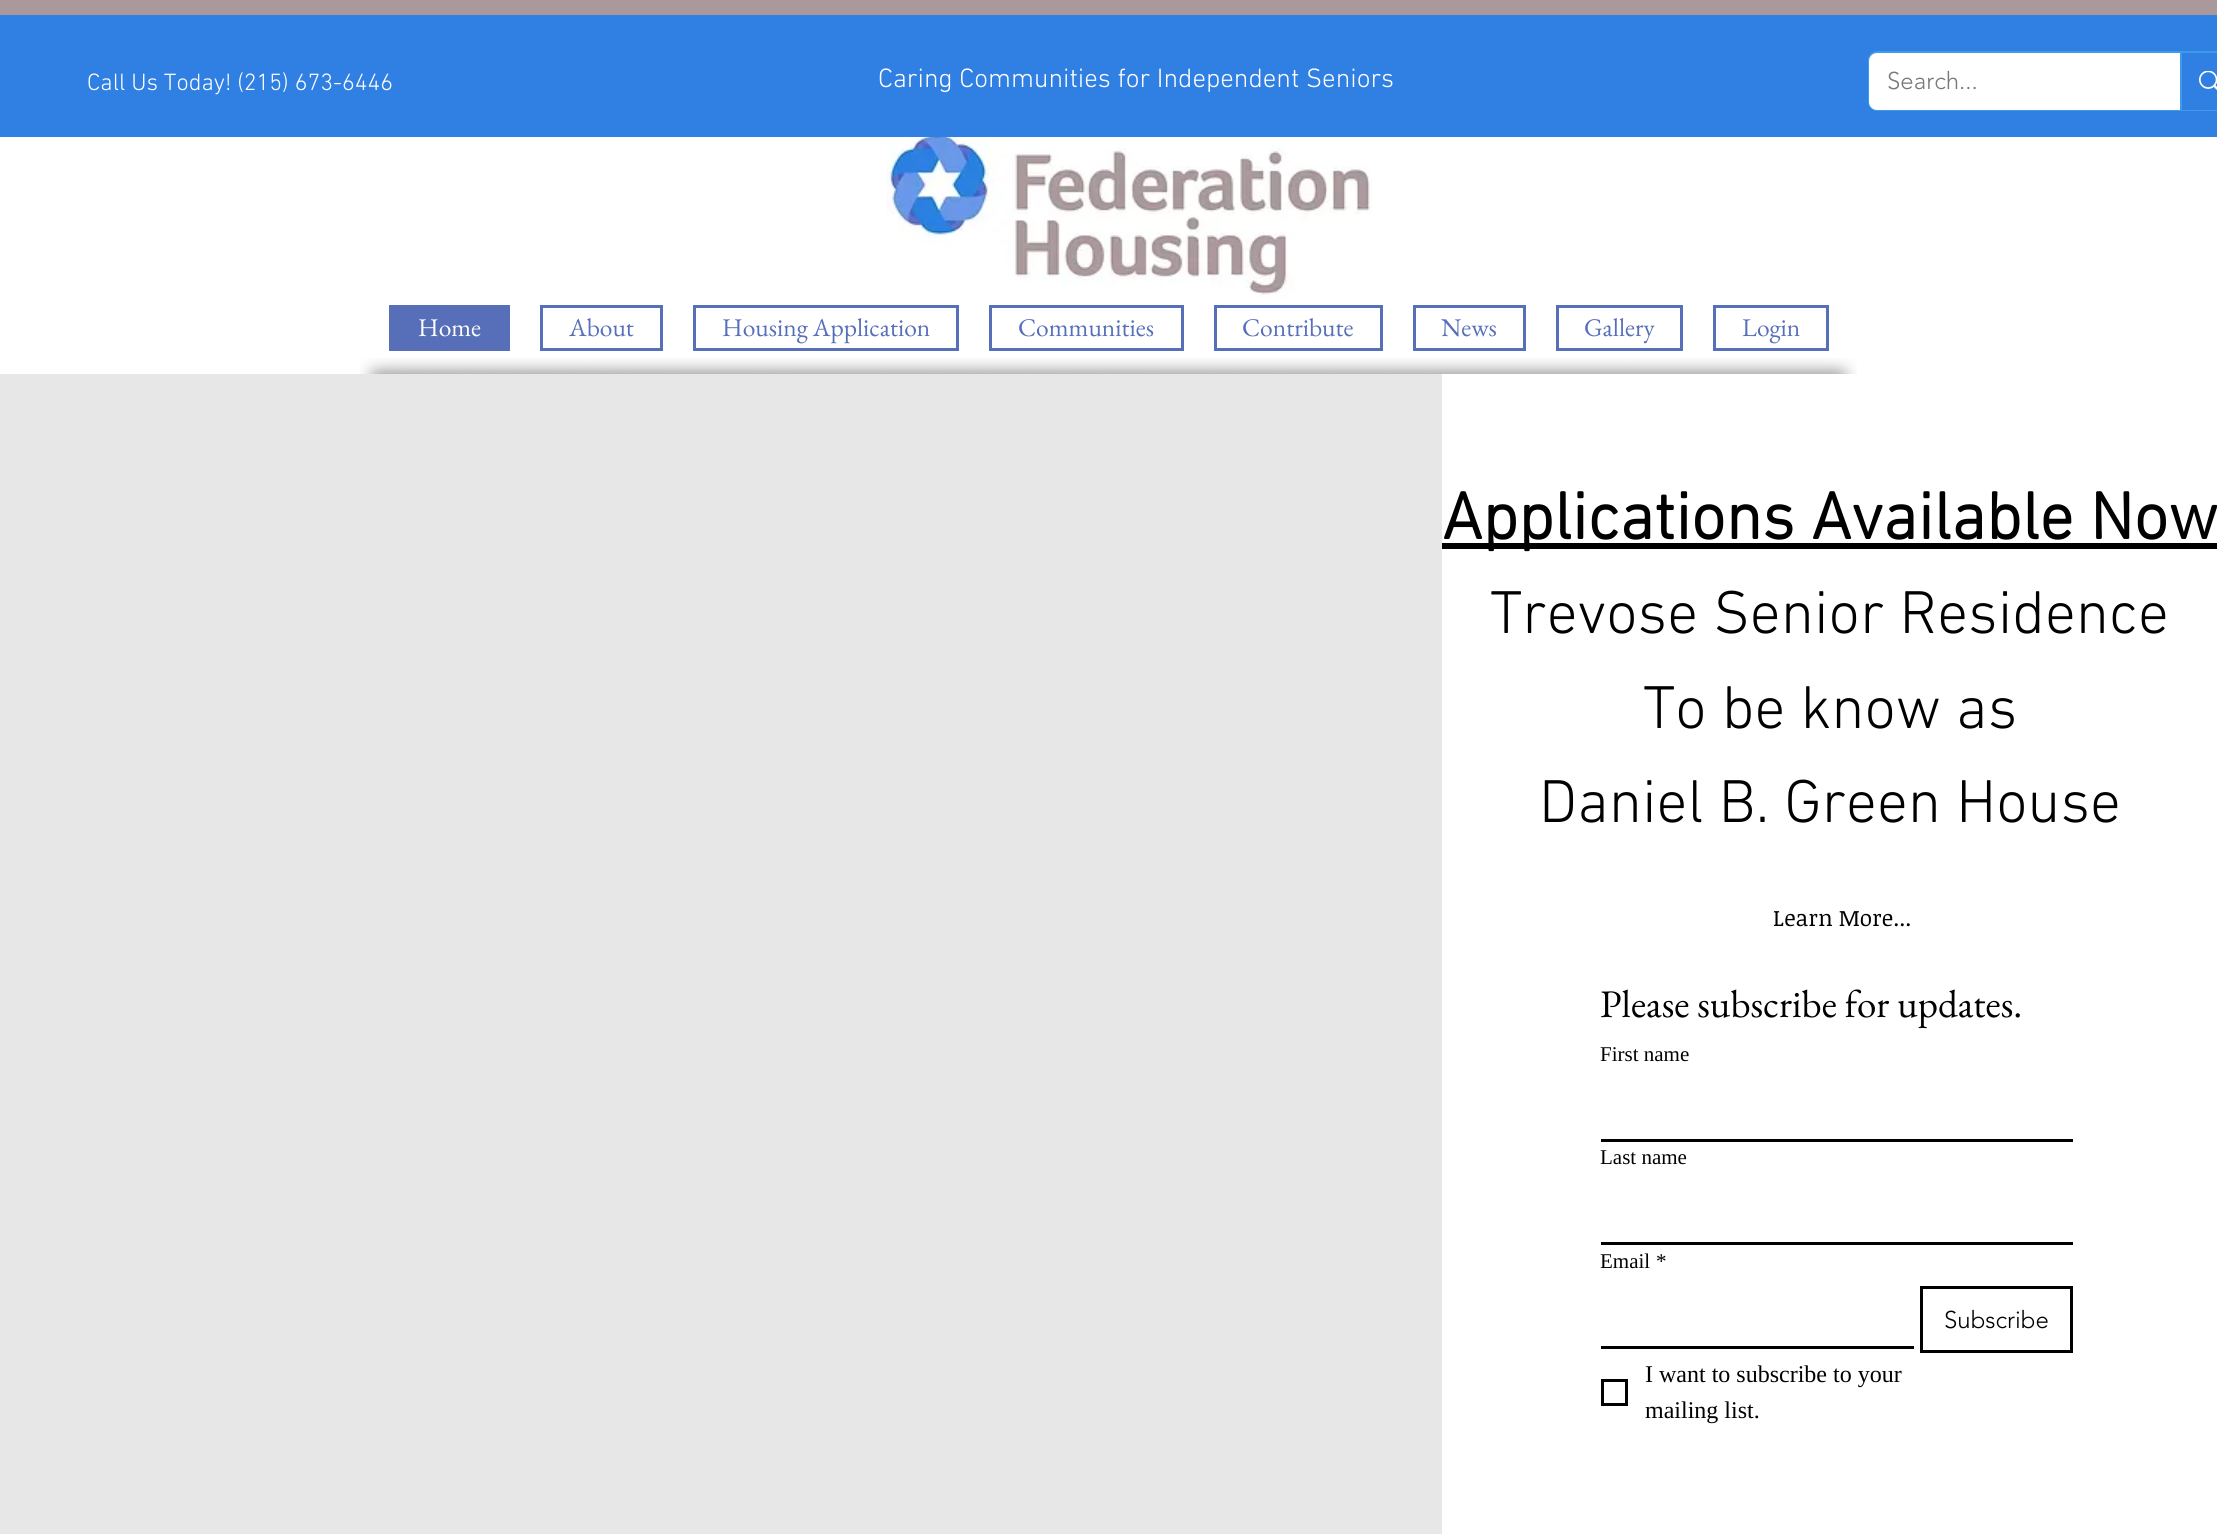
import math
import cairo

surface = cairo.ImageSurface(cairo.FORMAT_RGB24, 2217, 1534)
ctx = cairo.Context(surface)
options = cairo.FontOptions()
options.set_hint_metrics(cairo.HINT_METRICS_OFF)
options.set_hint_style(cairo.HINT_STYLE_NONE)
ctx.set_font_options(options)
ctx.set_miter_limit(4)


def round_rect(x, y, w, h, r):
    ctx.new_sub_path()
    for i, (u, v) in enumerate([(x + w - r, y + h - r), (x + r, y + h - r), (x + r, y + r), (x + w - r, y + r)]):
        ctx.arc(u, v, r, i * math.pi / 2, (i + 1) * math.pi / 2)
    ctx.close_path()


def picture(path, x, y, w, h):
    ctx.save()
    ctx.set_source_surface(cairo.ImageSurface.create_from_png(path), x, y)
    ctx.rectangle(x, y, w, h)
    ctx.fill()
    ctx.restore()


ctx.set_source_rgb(1, 1, 1)
ctx.paint()
ctx.set_source_rgb(0.188, 0.498, 0.886)
ctx.rectangle(0, 15, 2217, 122)
ctx.fill()
ctx.select_font_face("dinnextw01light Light")
ctx.set_font_size(24)
ctx.set_source_rgb(1, 1, 1)
ctx.move_to(87, 90)
ctx.show_text("Call Us Today! (215) 673-6446")
ctx.set_font_size(27)
ctx.move_to(878, 87)
ctx.show_text("Caring Communities for Independent Seniors")
round_rect(1869, 52, 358, 58, 8)
ctx.set_source_rgb(0.239, 0.608, 0.914)
ctx.stroke()
ctx.set_source_rgb(1, 1, 1)
round_rect(1869, 53, 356, 57, 8)
ctx.fill()
ctx.select_font_face("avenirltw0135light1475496 Light")
ctx.set_font_size(24)
ctx.set_source_rgb(0.471, 0.471, 0.471)
ctx.move_to(1887, 89)
ctx.show_text("Search...")
ctx.set_source_rgb(0.188, 0.498, 0.886)
ctx.rectangle(2182, 53, 35, 57)
ctx.fill()
ctx.set_source_rgb(0.239, 0.608, 0.914)
ctx.rectangle(2180, 53, 2, 57)
ctx.fill()
picture("img1.png", 2199, 71, 18, 19)
ctx.set_source_rgb(0.671, 0.596, 0.616)
ctx.rectangle(0, 0, 2217, 15)
ctx.fill()
picture("img2.png", 886, 137, 486, 161)
ctx.set_source_rgb(0.337, 0.435, 0.722)
ctx.rectangle(389, 305, 121, 46)
ctx.fill()
ctx.select_font_face("EB Garamond")
ctx.set_font_size(25.5)
ctx.set_source_rgb(1, 1, 1)
ctx.move_to(418, 336)
ctx.show_text("Home")
ctx.rectangle(541.5, 306.5, 120, 43)
ctx.set_source_rgb(0.337, 0.435, 0.722)
ctx.set_line_width(3)
ctx.stroke()
ctx.move_to(569, 336)
ctx.show_text("About")
ctx.rectangle(694.5, 306.5, 263, 43)
ctx.stroke()
ctx.move_to(722, 336)
ctx.show_text("Housing Application")
ctx.rectangle(990.5, 306.5, 192, 43)
ctx.stroke()
ctx.move_to(1018, 336)
ctx.show_text("Communities")
ctx.rectangle(1215.5, 306.5, 166, 43)
ctx.stroke()
ctx.move_to(1242, 336)
ctx.show_text("Contribute")
ctx.rectangle(1414.5, 306.5, 110, 43)
ctx.stroke()
ctx.move_to(1441, 336)
ctx.show_text("News")
ctx.rectangle(1557.5, 306.5, 124, 43)
ctx.stroke()
ctx.move_to(1584, 336)
ctx.show_text("Gallery")
ctx.rectangle(1714.5, 306.5, 113, 43)
ctx.stroke()
ctx.move_to(1742, 336)
ctx.show_text("Login")
picture("img3.png", 360, 358, 66, 16)
picture("img4.png", 426, 358, 1365, 16)
picture("img5.png", 1791, 358, 66, 16)
ctx.set_source_rgb(0.91, 0.906, 0.906)
ctx.rectangle(0, 374, 1442, 1160)
ctx.fill()
ctx.set_source_rgb(0, 0, 0)
ctx.rectangle(1442, 543, 775, 6)
ctx.fill()
ctx.select_font_face("dinnextw01light", cairo.FONT_SLANT_NORMAL, cairo.FONT_WEIGHT_BOLD)
ctx.set_font_size(67.5)
ctx.move_to(1442, 539)
ctx.show_text("Applications Available Now")
ctx.select_font_face("dinnextw01light Light")
ctx.set_font_size(61.5)
ctx.move_to(1490, 633)
ctx.show_text("Trevose Senior Residence")
ctx.move_to(1643, 728)
ctx.show_text("To be know as")
ctx.move_to(1539, 822)
ctx.show_text("Daniel B. Green House")
ctx.select_font_face("Noticia Text")
ctx.set_font_size(22.5)
ctx.move_to(1773, 926)
ctx.show_text("Learn More...")
ctx.select_font_face("EB Garamond")
ctx.set_font_size(39)
ctx.move_to(1600, 1017)
ctx.show_text("Please subscribe for updates.")
ctx.select_font_face("Liberation Serif")
ctx.set_font_size(21)
ctx.move_to(1600, 1061)
ctx.show_text("First name")
ctx.rectangle(1601, 1139, 472, 3)
ctx.fill()
ctx.move_to(1600, 1164)
ctx.show_text("Last name")
ctx.rectangle(1601, 1242, 472, 3)
ctx.fill()
ctx.move_to(1600, 1268)
ctx.show_text("Email")
ctx.move_to(1656, 1268)
ctx.show_text("*")
ctx.rectangle(1921.5, 1287.5, 150, 64)
ctx.stroke()
ctx.select_font_face("avenirltw0135light1475496 Light")
ctx.set_font_size(24)
ctx.move_to(1944, 1328)
ctx.show_text("Subscribe")
ctx.rectangle(1601, 1346, 313, 3)
ctx.fill()
ctx.rectangle(1602.5, 1380.5, 24, 24)
ctx.stroke()
ctx.select_font_face("Liberation Serif")
ctx.move_to(1645, 1382)
ctx.show_text("I want to subscribe to your")
ctx.move_to(1645, 1418)
ctx.show_text("mailing list.")
surface.write_to_png("page.png")
